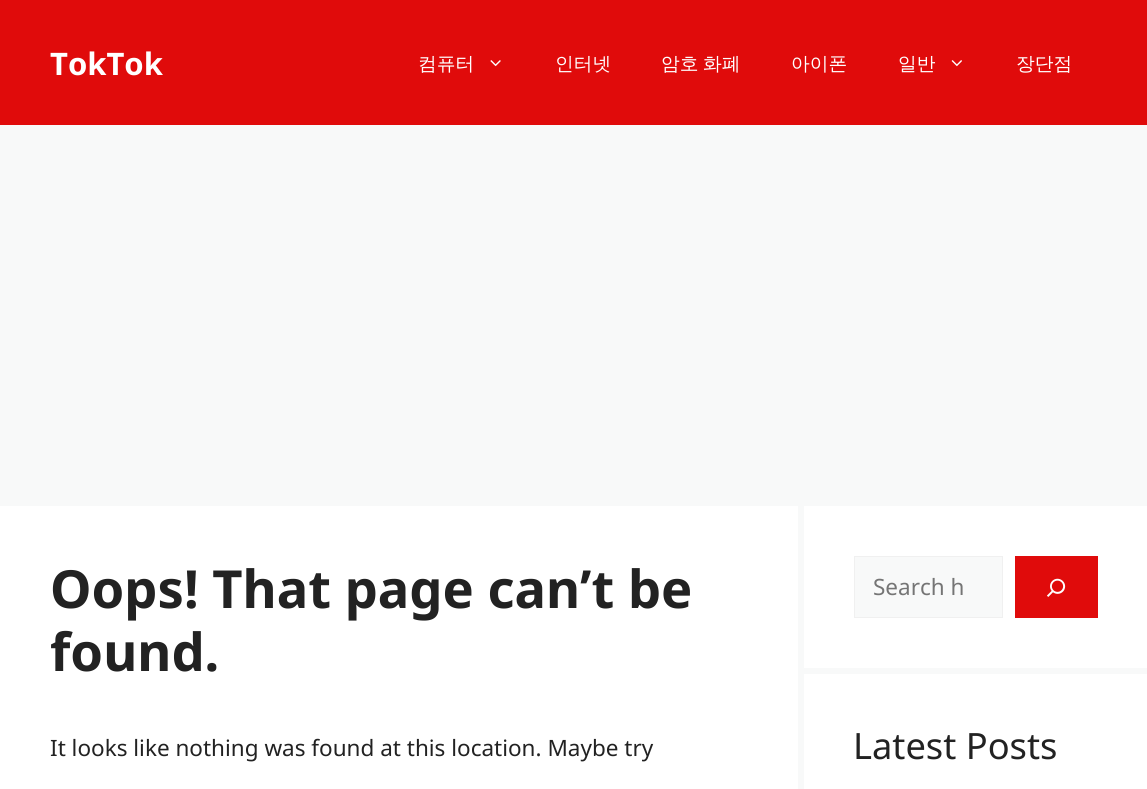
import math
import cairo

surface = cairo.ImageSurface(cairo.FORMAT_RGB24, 1147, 789)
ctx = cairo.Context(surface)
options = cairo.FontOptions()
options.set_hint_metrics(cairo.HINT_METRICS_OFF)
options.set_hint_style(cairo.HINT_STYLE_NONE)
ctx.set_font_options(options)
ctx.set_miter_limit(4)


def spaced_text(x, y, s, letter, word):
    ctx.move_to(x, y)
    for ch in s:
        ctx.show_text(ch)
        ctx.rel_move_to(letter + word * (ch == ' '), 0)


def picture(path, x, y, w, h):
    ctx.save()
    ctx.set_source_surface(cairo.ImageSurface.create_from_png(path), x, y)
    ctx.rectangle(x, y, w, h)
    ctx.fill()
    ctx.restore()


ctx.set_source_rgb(0.969, 0.973, 0.976)
ctx.paint()
ctx.set_source_rgb(0.878, 0.043, 0.043)
ctx.rectangle(0, 0, 1147, 125)
ctx.fill()
ctx.select_font_face("Noto Sans", cairo.FONT_SLANT_NORMAL, cairo.FONT_WEIGHT_BOLD)
ctx.set_font_size(31)
ctx.set_source_rgb(1, 1, 1)
ctx.move_to(50, 75)
ctx.show_text("TokTok")
ctx.select_font_face("WenQuanYi Zen Hei Medium")
ctx.set_font_size(18.75)
ctx.move_to(418, 70)
ctx.show_text("컴퓨터")
picture("img1.png", 490, 60, 11, 7)
ctx.move_to(555, 70)
ctx.show_text("인터넷")
spaced_text(661, 70, "암호 화폐", 0, -1)
ctx.move_to(791, 70)
ctx.show_text("아이폰")
ctx.move_to(898, 70)
ctx.show_text("일반")
picture("img2.png", 951, 60, 11, 7)
ctx.move_to(1016, 70)
ctx.show_text("장단점")
ctx.rectangle(0, 506, 798, 283)
ctx.fill()
ctx.select_font_face("Noto Sans", cairo.FONT_SLANT_NORMAL, cairo.FONT_WEIGHT_BOLD)
ctx.set_font_size(52.5)
ctx.set_source_rgb(0.133, 0.133, 0.133)
ctx.move_to(50, 608)
ctx.show_text("Oops! That page can’t be")
ctx.move_to(50, 671)
ctx.show_text("found.")
ctx.select_font_face("Noto Sans")
ctx.set_font_size(22.5)
ctx.move_to(50, 756)
ctx.show_text("It looks like nothing was found at this location. Maybe try")
ctx.set_source_rgb(1, 1, 1)
ctx.rectangle(804, 506, 343, 162)
ctx.fill()
ctx.set_source_rgb(0.969, 0.973, 0.976)
ctx.rectangle(854.5, 556.5, 148, 61)
ctx.fill_preserve()
ctx.set_source_rgb(0.941, 0.941, 0.941)
ctx.set_line_width(1)
ctx.stroke()
ctx.set_source_rgb(0.459, 0.459, 0.459)
ctx.move_to(873, 595)
ctx.show_text("Search h")
ctx.set_source_rgb(0.878, 0.043, 0.043)
ctx.rectangle(1015, 556, 83, 62)
ctx.fill()
picture("img3.png", 1047, 578, 19, 19)
ctx.set_source_rgb(1, 1, 1)
ctx.rectangle(804, 674, 343, 115)
ctx.fill()
ctx.set_font_size(36.25)
ctx.set_source_rgb(0.133, 0.133, 0.133)
ctx.move_to(853, 759)
ctx.show_text("Latest Posts")
surface.write_to_png("page.png")
